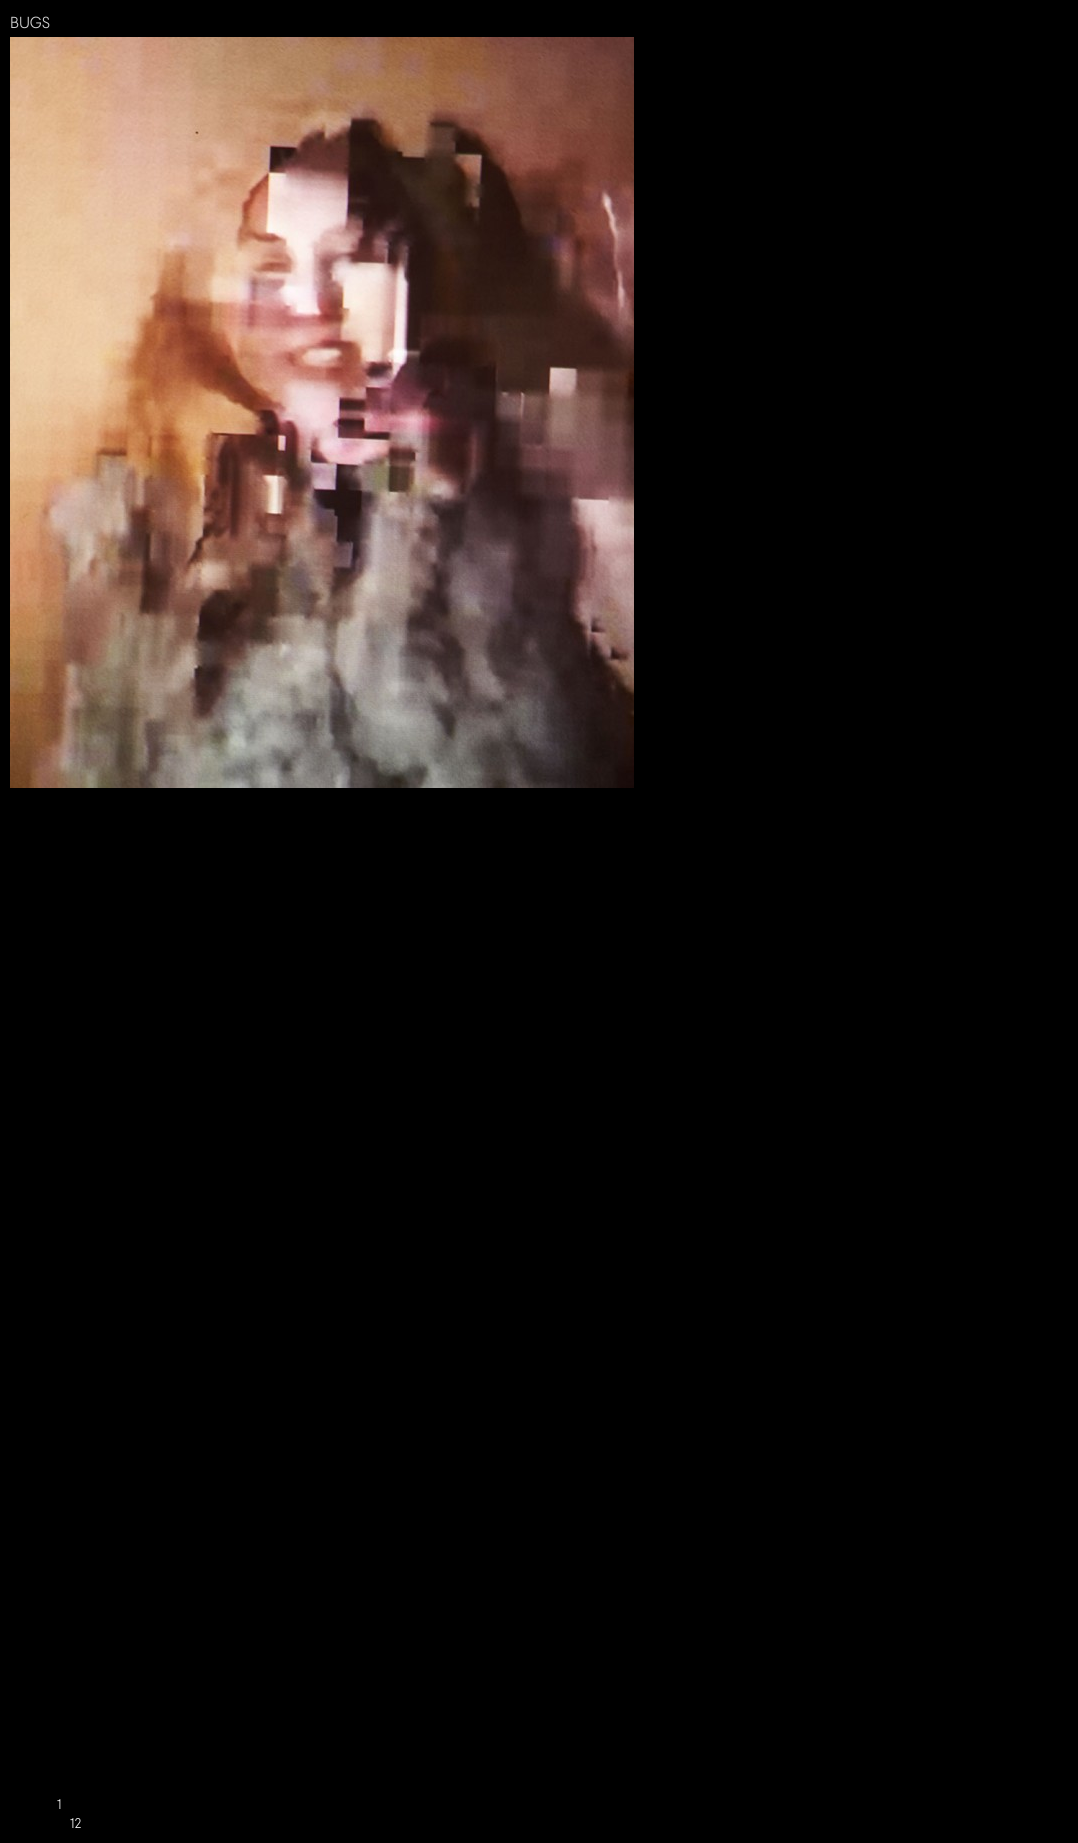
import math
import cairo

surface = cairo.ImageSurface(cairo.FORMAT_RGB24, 1078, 1843)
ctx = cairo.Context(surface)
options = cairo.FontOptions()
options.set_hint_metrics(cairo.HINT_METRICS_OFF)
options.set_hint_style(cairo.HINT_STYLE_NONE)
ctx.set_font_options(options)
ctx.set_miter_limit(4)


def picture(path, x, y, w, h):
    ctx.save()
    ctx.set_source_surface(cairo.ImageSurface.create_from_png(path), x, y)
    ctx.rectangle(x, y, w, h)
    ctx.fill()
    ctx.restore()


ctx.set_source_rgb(0, 0, 0)
ctx.paint()
ctx.select_font_face("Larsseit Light")
ctx.set_font_size(16)
ctx.set_source_rgb(0.812, 0.812, 0.812)
ctx.move_to(10, 28)
ctx.show_text("BUGS")
picture("img1.png", 10, 37, 624, 751)
ctx.set_font_size(14)
ctx.set_source_rgb(0.918, 0.918, 0.918)
ctx.move_to(57, 1809)
ctx.show_text("1")
ctx.move_to(70, 1828)
ctx.show_text("12")
surface.write_to_png("page.png")
